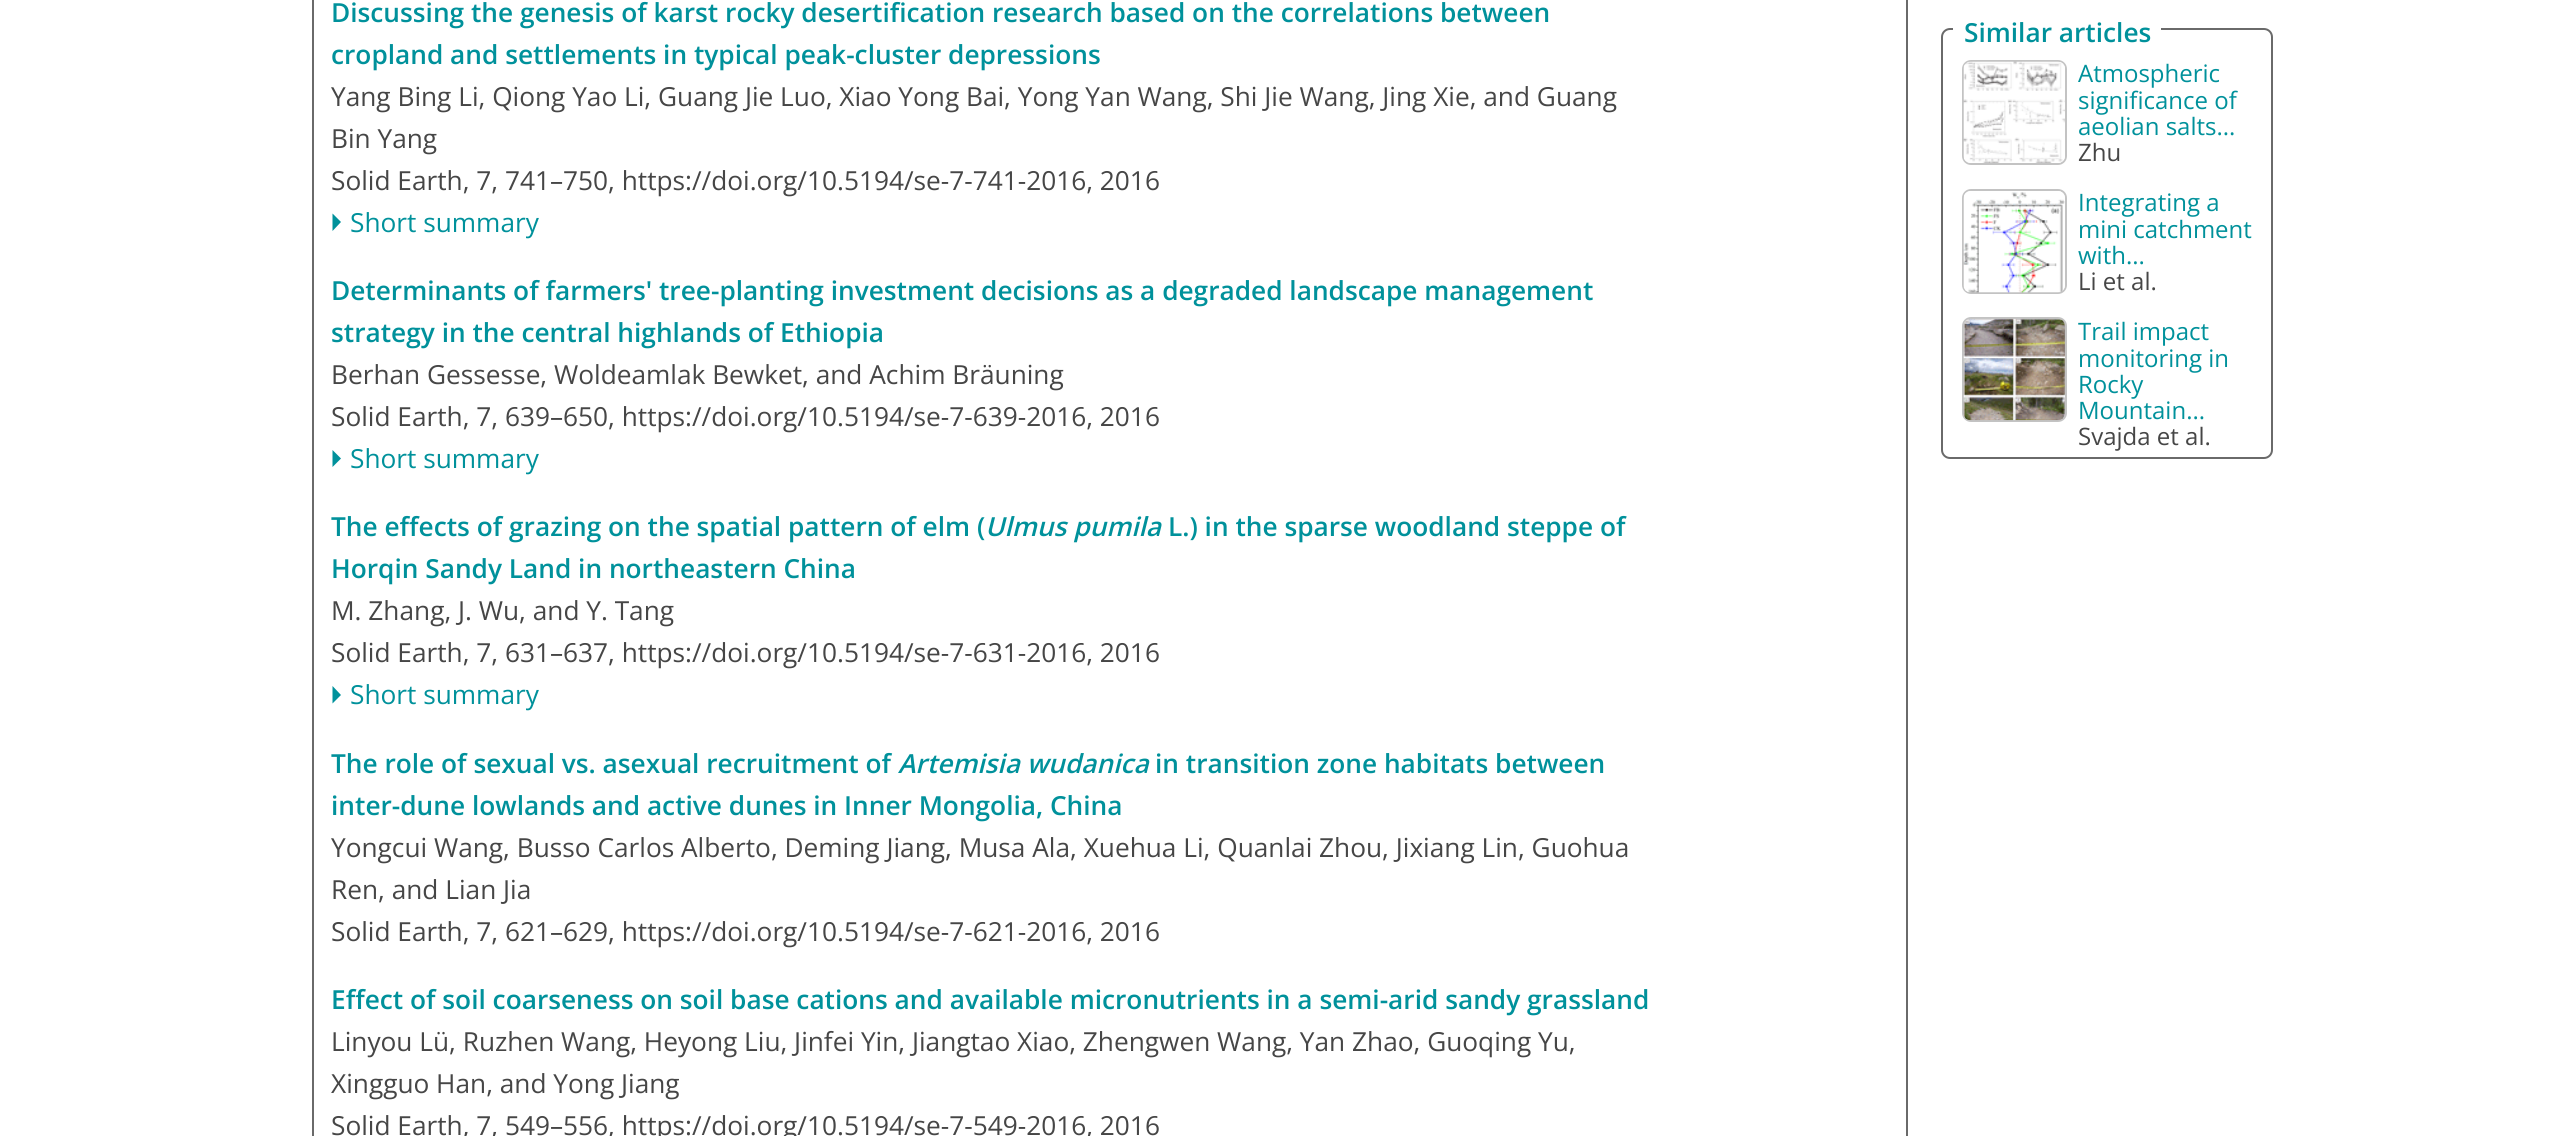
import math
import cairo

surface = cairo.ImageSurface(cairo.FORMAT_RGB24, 2565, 1136)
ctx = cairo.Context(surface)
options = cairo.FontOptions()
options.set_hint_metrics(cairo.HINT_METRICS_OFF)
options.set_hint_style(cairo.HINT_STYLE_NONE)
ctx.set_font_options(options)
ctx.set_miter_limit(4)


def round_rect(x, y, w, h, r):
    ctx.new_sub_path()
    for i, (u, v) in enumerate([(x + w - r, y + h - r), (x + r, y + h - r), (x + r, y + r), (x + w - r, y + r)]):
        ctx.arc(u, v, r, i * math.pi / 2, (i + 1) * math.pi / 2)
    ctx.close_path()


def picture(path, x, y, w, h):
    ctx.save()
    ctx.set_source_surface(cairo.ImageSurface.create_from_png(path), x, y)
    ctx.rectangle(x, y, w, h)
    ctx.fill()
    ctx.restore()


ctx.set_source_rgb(1, 1, 1)
ctx.paint()
ctx.rectangle(313, -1, 1594, 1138)
ctx.set_source_rgb(0.416, 0.416, 0.416)
ctx.stroke()
ctx.select_font_face("Open Sans SemiBold")
ctx.set_font_size(26.25)
ctx.set_source_rgb(0, 0.569, 0.608)
ctx.move_to(331, 22)
ctx.show_text("Discussing the genesis of karst rocky desertification research based on the correlations between")
ctx.move_to(331, 64)
ctx.show_text("cropland and settlements in typical peak-cluster depressions")
ctx.select_font_face("Open Sans")
ctx.set_source_rgb(0.275, 0.275, 0.275)
ctx.move_to(331, 106)
ctx.show_text("Yang Bing Li, Qiong Yao Li, Guang Jie Luo, Xiao Yong Bai, Yong Yan Wang, Shi Jie Wang, Jing Xie, and Guang")
ctx.move_to(331, 148)
ctx.show_text("Bin Yang")
ctx.move_to(331, 190)
ctx.show_text("Solid Earth, 7, 741–750, https://doi.org/10.5194/se-7-741-2016, 2016")
ctx.set_source_rgb(0, 0.569, 0.608)
ctx.new_path()
ctx.move_to(332.5, 231)
ctx.line_to(332.5, 213.5)
ctx.line_to(341, 222)
ctx.close_path()
ctx.fill()
ctx.move_to(350, 232)
ctx.show_text("Short summary")
ctx.select_font_face("Open Sans SemiBold")
ctx.move_to(331, 300)
ctx.show_text("Determinants of farmers' tree-planting investment decisions as a degraded landscape management")
ctx.move_to(331, 342)
ctx.show_text("strategy in the central highlands of Ethiopia")
ctx.select_font_face("Open Sans")
ctx.set_source_rgb(0.275, 0.275, 0.275)
ctx.move_to(331, 384)
ctx.show_text("Berhan Gessesse, Woldeamlak Bewket, and Achim Bräuning")
ctx.move_to(331, 426)
ctx.show_text("Solid Earth, 7, 639–650, https://doi.org/10.5194/se-7-639-2016, 2016")
ctx.set_source_rgb(0, 0.569, 0.608)
ctx.new_path()
ctx.move_to(332.5, 467)
ctx.line_to(332.5, 450)
ctx.line_to(341, 458.5)
ctx.close_path()
ctx.fill()
ctx.move_to(350, 468)
ctx.show_text("Short summary")
ctx.select_font_face("Open Sans SemiBold")
ctx.move_to(331, 536)
ctx.show_text("The effects of grazing on the spatial pattern of elm (")
ctx.select_font_face("Open Sans SemiBold", cairo.FONT_SLANT_ITALIC)
ctx.move_to(985, 536)
ctx.show_text("Ulmus pumila")
ctx.select_font_face("Open Sans SemiBold")
ctx.move_to(1168, 536)
ctx.show_text("L.) in the sparse woodland steppe of")
ctx.move_to(331, 578)
ctx.show_text("Horqin Sandy Land in northeastern China")
ctx.select_font_face("Open Sans")
ctx.set_source_rgb(0.275, 0.275, 0.275)
ctx.move_to(331, 620)
ctx.show_text("M. Zhang, J. Wu, and Y. Tang")
ctx.move_to(331, 662)
ctx.show_text("Solid Earth, 7, 631–637, https://doi.org/10.5194/se-7-631-2016, 2016")
ctx.set_source_rgb(0, 0.569, 0.608)
ctx.new_path()
ctx.move_to(332.5, 703.5)
ctx.line_to(332.5, 686)
ctx.line_to(341, 695)
ctx.close_path()
ctx.fill()
ctx.move_to(350, 704)
ctx.show_text("Short summary")
ctx.select_font_face("Open Sans SemiBold")
ctx.move_to(331, 773)
ctx.show_text("The role of sexual vs. asexual recruitment of")
ctx.select_font_face("Open Sans SemiBold", cairo.FONT_SLANT_ITALIC)
ctx.move_to(898, 773)
ctx.show_text("Artemisia wudanica")
ctx.select_font_face("Open Sans SemiBold")
ctx.move_to(1155, 773)
ctx.show_text("in transition zone habitats between")
ctx.move_to(331, 815)
ctx.show_text("inter-dune lowlands and active dunes in Inner Mongolia, China")
ctx.select_font_face("Open Sans")
ctx.set_source_rgb(0.275, 0.275, 0.275)
ctx.move_to(331, 857)
ctx.show_text("Yongcui Wang, Busso Carlos Alberto, Deming Jiang, Musa Ala, Xuehua Li, Quanlai Zhou, Jixiang Lin, Guohua")
ctx.move_to(331, 899)
ctx.show_text("Ren, and Lian Jia")
ctx.move_to(331, 941)
ctx.show_text("Solid Earth, 7, 621–629, https://doi.org/10.5194/se-7-621-2016, 2016")
ctx.select_font_face("Open Sans SemiBold")
ctx.set_source_rgb(0, 0.569, 0.608)
ctx.move_to(331, 1009)
ctx.show_text("Effect of soil coarseness on soil base cations and available micronutrients in a semi-arid sandy grassland")
ctx.select_font_face("Open Sans")
ctx.set_source_rgb(0.275, 0.275, 0.275)
ctx.move_to(331, 1051)
ctx.show_text("Linyou Lü, Ruzhen Wang, Heyong Liu, Jinfei Yin, Jiangtao Xiao, Zhengwen Wang, Yan Zhao, Guoqing Yu,")
ctx.move_to(331, 1093)
ctx.show_text("Xingguo Han, and Yong Jiang")
ctx.move_to(331, 1135)
ctx.show_text("Solid Earth, 7, 549–556, https://doi.org/10.5194/se-7-549-2016, 2016")
round_rect(1942, 29, 330, 429, 8)
ctx.set_source_rgb(0.416, 0.416, 0.416)
ctx.stroke()
ctx.set_source_rgb(1, 1, 1)
ctx.rectangle(1953, 28, 208, 2)
ctx.fill()
ctx.select_font_face("Open Sans SemiBold")
ctx.set_source_rgb(0, 0.569, 0.608)
ctx.move_to(1964, 42)
ctx.show_text("Similar articles")
round_rect(1963, 61, 103, 103, 8)
ctx.set_source_rgb(0.765, 0.765, 0.765)
ctx.stroke()
picture("img1.png", 1963, 61, 102, 102)
ctx.select_font_face("Open Sans")
ctx.set_font_size(24)
ctx.set_source_rgb(0, 0.569, 0.608)
ctx.move_to(2078, 82)
ctx.show_text("Atmospheric")
ctx.move_to(2078, 109)
ctx.show_text("significance of")
ctx.move_to(2078, 135)
ctx.show_text("aeolian salts...")
ctx.set_source_rgb(0.275, 0.275, 0.275)
ctx.move_to(2078, 161)
ctx.show_text("Zhu")
round_rect(1963, 190, 103, 103, 8)
ctx.set_source_rgb(0.765, 0.765, 0.765)
ctx.stroke()
picture("img2.png", 1963, 191, 102, 102)
ctx.set_source_rgb(0, 0.569, 0.608)
ctx.move_to(2078, 211)
ctx.show_text("Integrating a")
ctx.move_to(2078, 238)
ctx.show_text("mini catchment")
ctx.move_to(2078, 264)
ctx.show_text("with...")
ctx.set_source_rgb(0.275, 0.275, 0.275)
ctx.move_to(2078, 290)
ctx.show_text("Li et al.")
round_rect(1963, 318, 103, 103, 8)
ctx.set_source_rgb(0.765, 0.765, 0.765)
ctx.stroke()
picture("img3.png", 1963, 318, 102, 103)
ctx.set_source_rgb(0, 0.569, 0.608)
ctx.move_to(2078, 340)
ctx.show_text("Trail impact")
ctx.move_to(2078, 367)
ctx.show_text("monitoring in")
ctx.move_to(2078, 393)
ctx.show_text("Rocky")
ctx.move_to(2078, 419)
ctx.show_text("Mountain...")
ctx.set_source_rgb(0.275, 0.275, 0.275)
ctx.move_to(2078, 445)
ctx.show_text("Svajda et al.")
surface.write_to_png("page.png")
